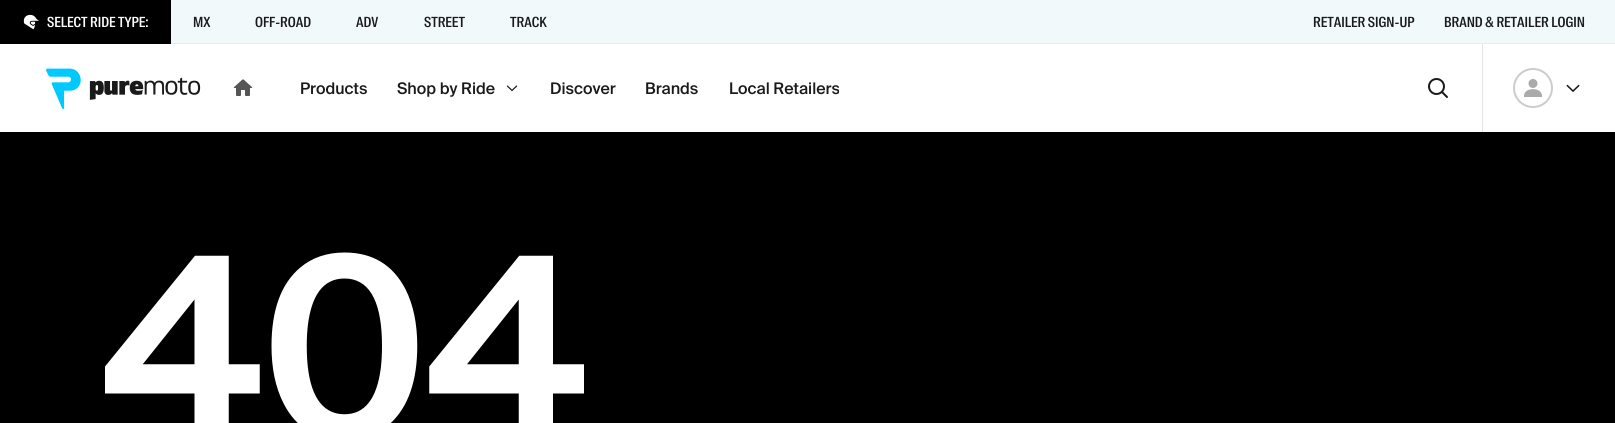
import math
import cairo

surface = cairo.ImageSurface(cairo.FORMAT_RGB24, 1615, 423)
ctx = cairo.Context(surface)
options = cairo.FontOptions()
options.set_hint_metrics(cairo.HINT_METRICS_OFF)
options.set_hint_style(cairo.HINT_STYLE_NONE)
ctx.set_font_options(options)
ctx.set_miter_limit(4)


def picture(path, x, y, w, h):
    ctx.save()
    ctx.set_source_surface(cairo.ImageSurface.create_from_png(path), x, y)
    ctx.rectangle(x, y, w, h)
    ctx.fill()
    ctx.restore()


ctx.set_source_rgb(1, 1, 1)
ctx.paint()
ctx.set_source_rgb(0.949, 0.973, 0.98)
ctx.rectangle(171, 0, 1444, 43)
ctx.fill()
ctx.set_source_rgb(0.902, 0.925, 0.933)
ctx.rectangle(171, 43, 1444, 1)
ctx.fill()
ctx.set_source_rgb(0, 0, 0)
ctx.rectangle(0, 0, 171, 44)
ctx.fill()
picture("img1.png", 23, 14, 16, 16)
ctx.select_font_face("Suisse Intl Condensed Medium")
ctx.set_font_size(14)
ctx.set_source_rgb(1, 1, 1)
ctx.move_to(47, 27)
ctx.show_text("SELECT RIDE TYPE:")
ctx.set_source_rgb(0.102, 0.102, 0.102)
ctx.move_to(193, 27)
ctx.show_text("MX")
ctx.move_to(255, 27)
ctx.show_text("OFF-ROAD")
ctx.move_to(356, 27)
ctx.show_text("ADV")
ctx.move_to(424, 27)
ctx.show_text("STREET")
ctx.move_to(510, 27)
ctx.show_text("TRACK")
ctx.move_to(1313, 27)
ctx.show_text("RETAILER SIGN-UP")
ctx.move_to(1444, 27)
ctx.show_text("BRAND & RETAILER LOGIN")
picture("img2.png", 46, 68, 155, 42)
picture("img3.png", 233, 79, 20, 17)
ctx.select_font_face("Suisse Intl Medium")
ctx.set_font_size(16)
ctx.move_to(300, 94)
ctx.show_text("Products")
ctx.move_to(397, 94)
ctx.show_text("Shop by Ride")
picture("img4.png", 506, 85, 12, 7)
ctx.move_to(550, 94)
ctx.show_text("Discover")
ctx.move_to(645, 94)
ctx.show_text("Brands")
ctx.move_to(729, 94)
ctx.show_text("Local Retailers")
picture("img5.png", 1428, 78, 20, 20)
ctx.set_source_rgb(0.902, 0.902, 0.902)
ctx.rectangle(1482, 44, 1, 88)
ctx.fill()
picture("img6.png", 1524, 79, 18, 18)
ctx.arc(1533, 88, 19, 0, 2 * math.pi)
ctx.set_source_rgb(0.8, 0.8, 0.8)
ctx.stroke()
picture("img7.png", 1566, 84, 14, 8)
ctx.set_source_rgb(0, 0, 0)
ctx.rectangle(0, 132, 1615, 291)
ctx.fill()
ctx.select_font_face("Suisse Intl SemiBold")
ctx.set_font_size(250)
ctx.set_source_rgb(1, 1, 1)
ctx.move_to(103, 437)
ctx.show_text("404")
surface.write_to_png("page.png")
